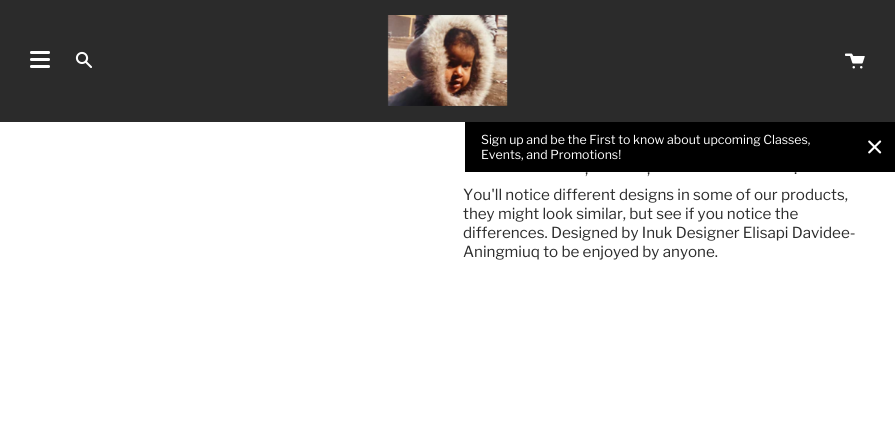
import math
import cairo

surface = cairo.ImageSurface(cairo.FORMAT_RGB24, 895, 429)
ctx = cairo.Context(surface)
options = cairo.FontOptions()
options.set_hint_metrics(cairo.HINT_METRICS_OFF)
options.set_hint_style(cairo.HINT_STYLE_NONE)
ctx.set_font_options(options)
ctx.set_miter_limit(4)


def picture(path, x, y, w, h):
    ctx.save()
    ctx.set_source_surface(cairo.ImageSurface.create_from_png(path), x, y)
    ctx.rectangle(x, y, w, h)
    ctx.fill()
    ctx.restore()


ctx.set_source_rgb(1, 1, 1)
ctx.paint()
ctx.set_source_rgb(0, 0, 0)
ctx.rectangle(465, 122, 430, 50)
ctx.fill()
ctx.select_font_face("Libre Franklin")
ctx.set_font_size(12.35)
ctx.set_source_rgb(1, 1, 1)
ctx.move_to(481, 144)
ctx.show_text("Sign up and be the First to know about upcoming Classes,")
ctx.move_to(481, 159)
ctx.show_text("Events, and Promotions!")
picture("img1.png", 868, 140, 14, 14)
ctx.set_source_rgb(0.169, 0.169, 0.169)
ctx.rectangle(0, 0, 895, 122)
ctx.fill()
ctx.set_source_rgb(1, 1, 1)
ctx.new_path()
ctx.move_to(31.5, 51)
ctx.line_to(47, 51)
ctx.line_to(47, 54)
ctx.line_to(31.5, 54)
ctx.curve_to(30.5, 54, 30, 53.5, 30, 52.5)
ctx.curve_to(30, 51.5, 30.5, 51, 31.5, 51)
ctx.close_path()
ctx.fill()
ctx.new_path()
ctx.move_to(33, 51)
ctx.line_to(48.5, 51)
ctx.curve_to(49.5, 51, 50, 51.5, 50, 52.5)
ctx.curve_to(50, 53.5, 49.5, 54, 48.5, 54)
ctx.line_to(33, 54)
ctx.close_path()
ctx.fill()
ctx.new_path()
ctx.move_to(31.5, 58)
ctx.line_to(47, 58)
ctx.line_to(47, 61)
ctx.line_to(31.5, 61)
ctx.curve_to(30.5, 61, 30, 60.5, 30, 59.5)
ctx.curve_to(30, 58.5, 30.5, 58, 31.5, 58)
ctx.close_path()
ctx.fill()
ctx.new_path()
ctx.move_to(33, 58)
ctx.line_to(48.5, 58)
ctx.curve_to(49.5, 58, 50, 58.5, 50, 59.5)
ctx.curve_to(50, 60.5, 49.5, 61, 48.5, 61)
ctx.line_to(33, 61)
ctx.close_path()
ctx.fill()
ctx.new_path()
ctx.move_to(31.5, 65)
ctx.line_to(47, 65)
ctx.line_to(47, 68)
ctx.line_to(31.5, 68)
ctx.curve_to(30.5, 68, 30, 67.5, 30, 66.5)
ctx.curve_to(30, 65.5, 30.5, 65, 31.5, 65)
ctx.close_path()
ctx.fill()
ctx.new_path()
ctx.move_to(33, 65)
ctx.line_to(48.5, 65)
ctx.curve_to(49.5, 65, 50, 65.5, 50, 66.5)
ctx.curve_to(50, 67.5, 49.5, 68, 48.5, 68)
ctx.line_to(33, 68)
ctx.close_path()
ctx.fill()
picture("img2.png", 75, 51, 17, 17)
picture("img3.png", 387, 15, 121, 91)
picture("img4.png", 845, 53, 20, 16)
ctx.set_font_size(15.2)
ctx.set_source_rgb(0.169, 0.169, 0.169)
ctx.move_to(585, 174)
ctx.show_text(",")
ctx.move_to(647, 174)
ctx.show_text(",")
ctx.move_to(794, 174)
ctx.show_text(".")
ctx.move_to(463, 200)
ctx.show_text("You'll notice different designs in some of our products,")
ctx.move_to(463, 219)
ctx.show_text("they might look similar, but see if you notice the")
ctx.move_to(463, 238)
ctx.show_text("differences. Designed by Inuk Designer Elisapi Davidee-")
ctx.move_to(463, 257)
ctx.show_text("Aningmiuq to be enjoyed by anyone.")
surface.write_to_png("page.png")
